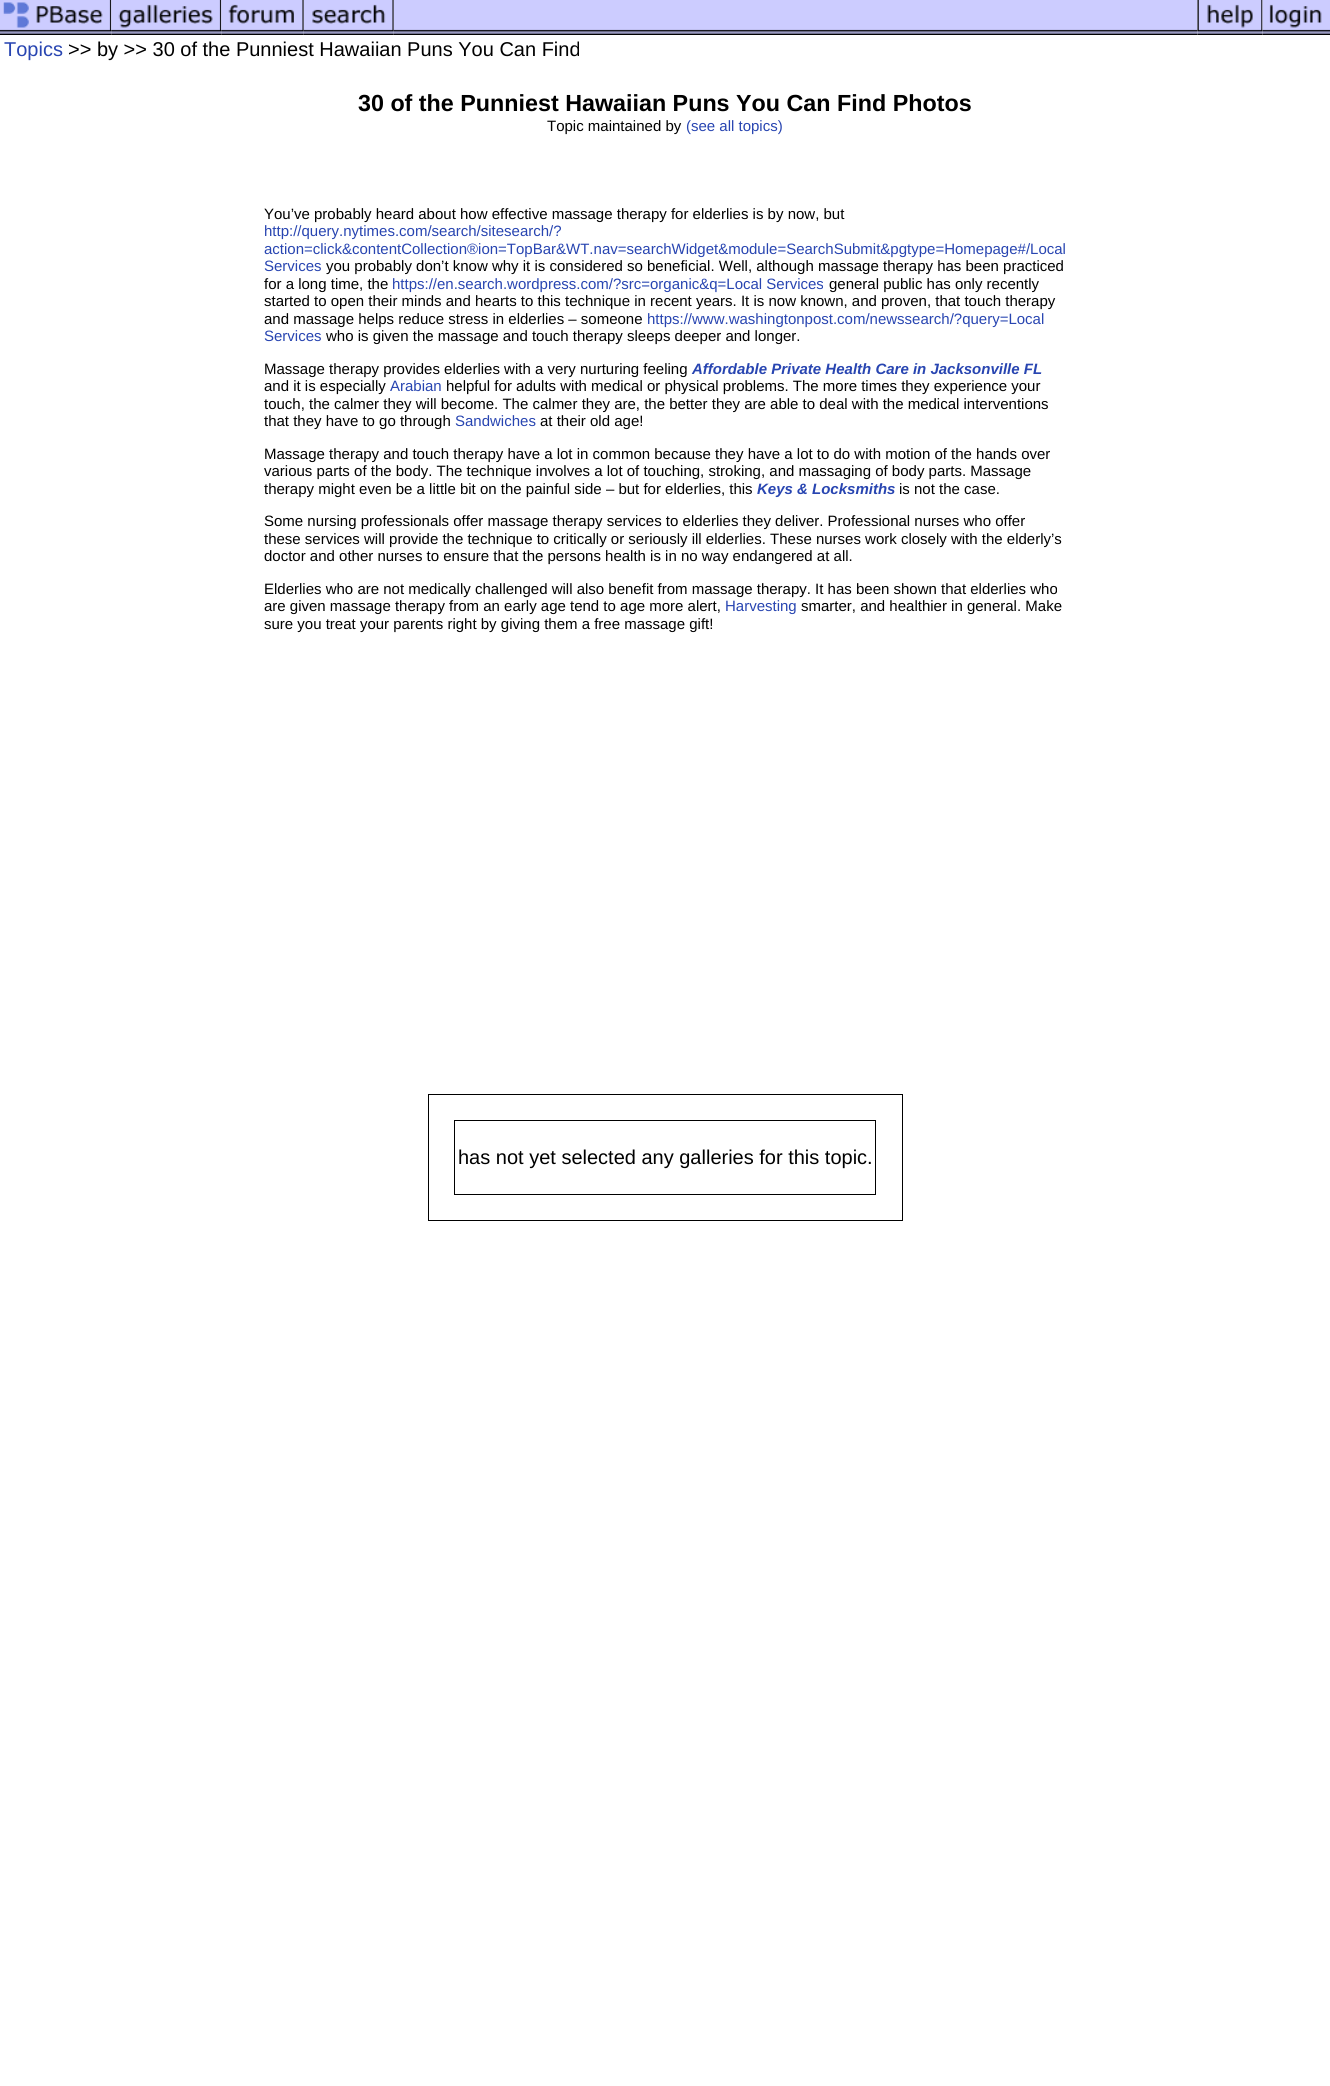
import math
import cairo

surface = cairo.ImageSurface(cairo.FORMAT_RGB24, 1330, 2086)
ctx = cairo.Context(surface)
options = cairo.FontOptions()
options.set_hint_metrics(cairo.HINT_METRICS_OFF)
options.set_hint_style(cairo.HINT_STYLE_NONE)
ctx.set_font_options(options)
ctx.set_miter_limit(4)


def picture(path, x, y, w, h):
    ctx.save()
    ctx.set_source_surface(cairo.ImageSurface.create_from_png(path), x, y)
    ctx.rectangle(x, y, w, h)
    ctx.fill()
    ctx.restore()


ctx.set_source_rgb(1, 1, 1)
ctx.paint()
picture("img1.png", 0, 0, 112, 35)
picture("img2.png", 111, 0, 111, 35)
picture("img3.png", 221, 0, 83, 35)
picture("img4.png", 303, 0, 91, 35)
picture("img5.png", 393, 0, 805, 35)
picture("img6.png", 1197, 0, 66, 35)
picture("img7.png", 1262, 0, 68, 35)
ctx.select_font_face("Liberation Sans")
ctx.set_font_size(20)
ctx.set_source_rgb(0.157, 0.271, 0.694)
ctx.move_to(4, 56)
ctx.show_text("Topics")
ctx.set_source_rgb(0, 0, 0)
ctx.move_to(68, 56)
ctx.show_text(">> by >> 30 of the Punniest Hawaiian Puns You Can Find")
ctx.select_font_face("Liberation Sans", cairo.FONT_SLANT_NORMAL, cairo.FONT_WEIGHT_BOLD)
ctx.set_font_size(23.3)
ctx.move_to(358, 111)
ctx.show_text("30 of the Punniest Hawaiian Puns You Can Find Photos")
ctx.select_font_face("Liberation Sans")
ctx.set_font_size(15)
ctx.move_to(547, 131)
ctx.show_text("Topic maintained by")
ctx.set_source_rgb(0.157, 0.271, 0.694)
ctx.move_to(686, 131)
ctx.show_text("(see all topics)")
ctx.set_source_rgb(0, 0, 0)
ctx.move_to(264, 219)
ctx.show_text("You’ve probably heard about how effective massage therapy for elderlies is by now, but")
ctx.set_source_rgb(0.157, 0.271, 0.694)
ctx.move_to(264, 236)
ctx.show_text("http://query.nytimes.com/search/sitesearch/?")
ctx.move_to(264, 254)
ctx.show_text("action=click&contentCollection®ion=TopBar&WT.nav=searchWidget&module=SearchSubmit&pgtype=Homepage#/Local")
ctx.move_to(264, 271)
ctx.show_text("Services")
ctx.set_source_rgb(0, 0, 0)
ctx.move_to(326, 271)
ctx.show_text("you probably don’t know why it is considered so beneficial. Well, although massage therapy has been practiced")
ctx.move_to(264, 289)
ctx.show_text("for a long time, the")
ctx.set_source_rgb(0.157, 0.271, 0.694)
ctx.move_to(392, 289)
ctx.show_text("https://en.search.wordpress.com/?src=organic&q=Local Services")
ctx.set_source_rgb(0, 0, 0)
ctx.move_to(829, 289)
ctx.show_text("general public has only recently")
ctx.move_to(264, 306)
ctx.show_text("started to open their minds and hearts to this technique in recent years. It is now known, and proven, that touch therapy")
ctx.move_to(264, 324)
ctx.show_text("and massage helps reduce stress in elderlies – someone")
ctx.set_source_rgb(0.157, 0.271, 0.694)
ctx.move_to(647, 324)
ctx.show_text("https://www.washingtonpost.com/newssearch/?query=Local")
ctx.move_to(264, 341)
ctx.show_text("Services")
ctx.set_source_rgb(0, 0, 0)
ctx.move_to(326, 341)
ctx.show_text("who is given the massage and touch therapy sleeps deeper and longer.")
ctx.move_to(264, 374)
ctx.show_text("Massage therapy provides elderlies with a very nurturing feeling")
ctx.select_font_face("Liberation Sans", cairo.FONT_SLANT_ITALIC, cairo.FONT_WEIGHT_BOLD)
ctx.set_source_rgb(0.157, 0.271, 0.694)
ctx.move_to(692, 374)
ctx.show_text("Affordable Private Health Care in Jacksonville FL")
ctx.select_font_face("Liberation Sans")
ctx.set_source_rgb(0, 0, 0)
ctx.move_to(264, 391)
ctx.show_text("and it is especially")
ctx.set_source_rgb(0.157, 0.271, 0.694)
ctx.move_to(390, 391)
ctx.show_text("Arabian")
ctx.set_source_rgb(0, 0, 0)
ctx.move_to(446, 391)
ctx.show_text("helpful for adults with medical or physical problems. The more times they experience your")
ctx.move_to(264, 409)
ctx.show_text("touch, the calmer they will become. The calmer they are, the better they are able to deal with the medical interventions")
ctx.move_to(264, 426)
ctx.show_text("that they have to go through")
ctx.set_source_rgb(0.157, 0.271, 0.694)
ctx.move_to(455, 426)
ctx.show_text("Sandwiches")
ctx.set_source_rgb(0, 0, 0)
ctx.move_to(540, 426)
ctx.show_text("at their old age!")
ctx.move_to(264, 459)
ctx.show_text("Massage therapy and touch therapy have a lot in common because they have a lot to do with motion of the hands over")
ctx.move_to(264, 476)
ctx.show_text("various parts of the body. The technique involves a lot of touching, stroking, and massaging of body parts. Massage")
ctx.move_to(264, 494)
ctx.show_text("therapy might even be a little bit on the painful side – but for elderlies, this")
ctx.select_font_face("Liberation Sans", cairo.FONT_SLANT_ITALIC, cairo.FONT_WEIGHT_BOLD)
ctx.set_source_rgb(0.157, 0.271, 0.694)
ctx.move_to(757, 494)
ctx.show_text("Keys & Locksmiths")
ctx.select_font_face("Liberation Sans")
ctx.set_source_rgb(0, 0, 0)
ctx.move_to(899, 494)
ctx.show_text("is not the case.")
ctx.move_to(264, 526)
ctx.show_text("Some nursing professionals offer massage therapy services to elderlies they deliver. Professional nurses who offer")
ctx.move_to(264, 544)
ctx.show_text("these services will provide the technique to critically or seriously ill elderlies. These nurses work closely with the elderly’s")
ctx.move_to(264, 561)
ctx.show_text("doctor and other nurses to ensure that the persons health is in no way endangered at all.")
ctx.move_to(264, 594)
ctx.show_text("Elderlies who are not medically challenged will also benefit from massage therapy. It has been shown that elderlies who")
ctx.move_to(264, 611)
ctx.show_text("are given massage therapy from an early age tend to age more alert,")
ctx.set_source_rgb(0.157, 0.271, 0.694)
ctx.move_to(725, 611)
ctx.show_text("Harvesting")
ctx.set_source_rgb(0, 0, 0)
ctx.move_to(801, 611)
ctx.show_text("smarter, and healthier in general. Make")
ctx.move_to(264, 629)
ctx.show_text("sure you treat your parents right by giving them a free massage gift!")
ctx.rectangle(428.5, 1094.5, 474, 126)
ctx.set_line_width(1)
ctx.stroke()
ctx.rectangle(454.5, 1120.5, 421, 74)
ctx.stroke()
ctx.set_font_size(20)
ctx.move_to(458, 1164)
ctx.show_text("has not yet selected any galleries for this topic.")
surface.write_to_png("page.png")
